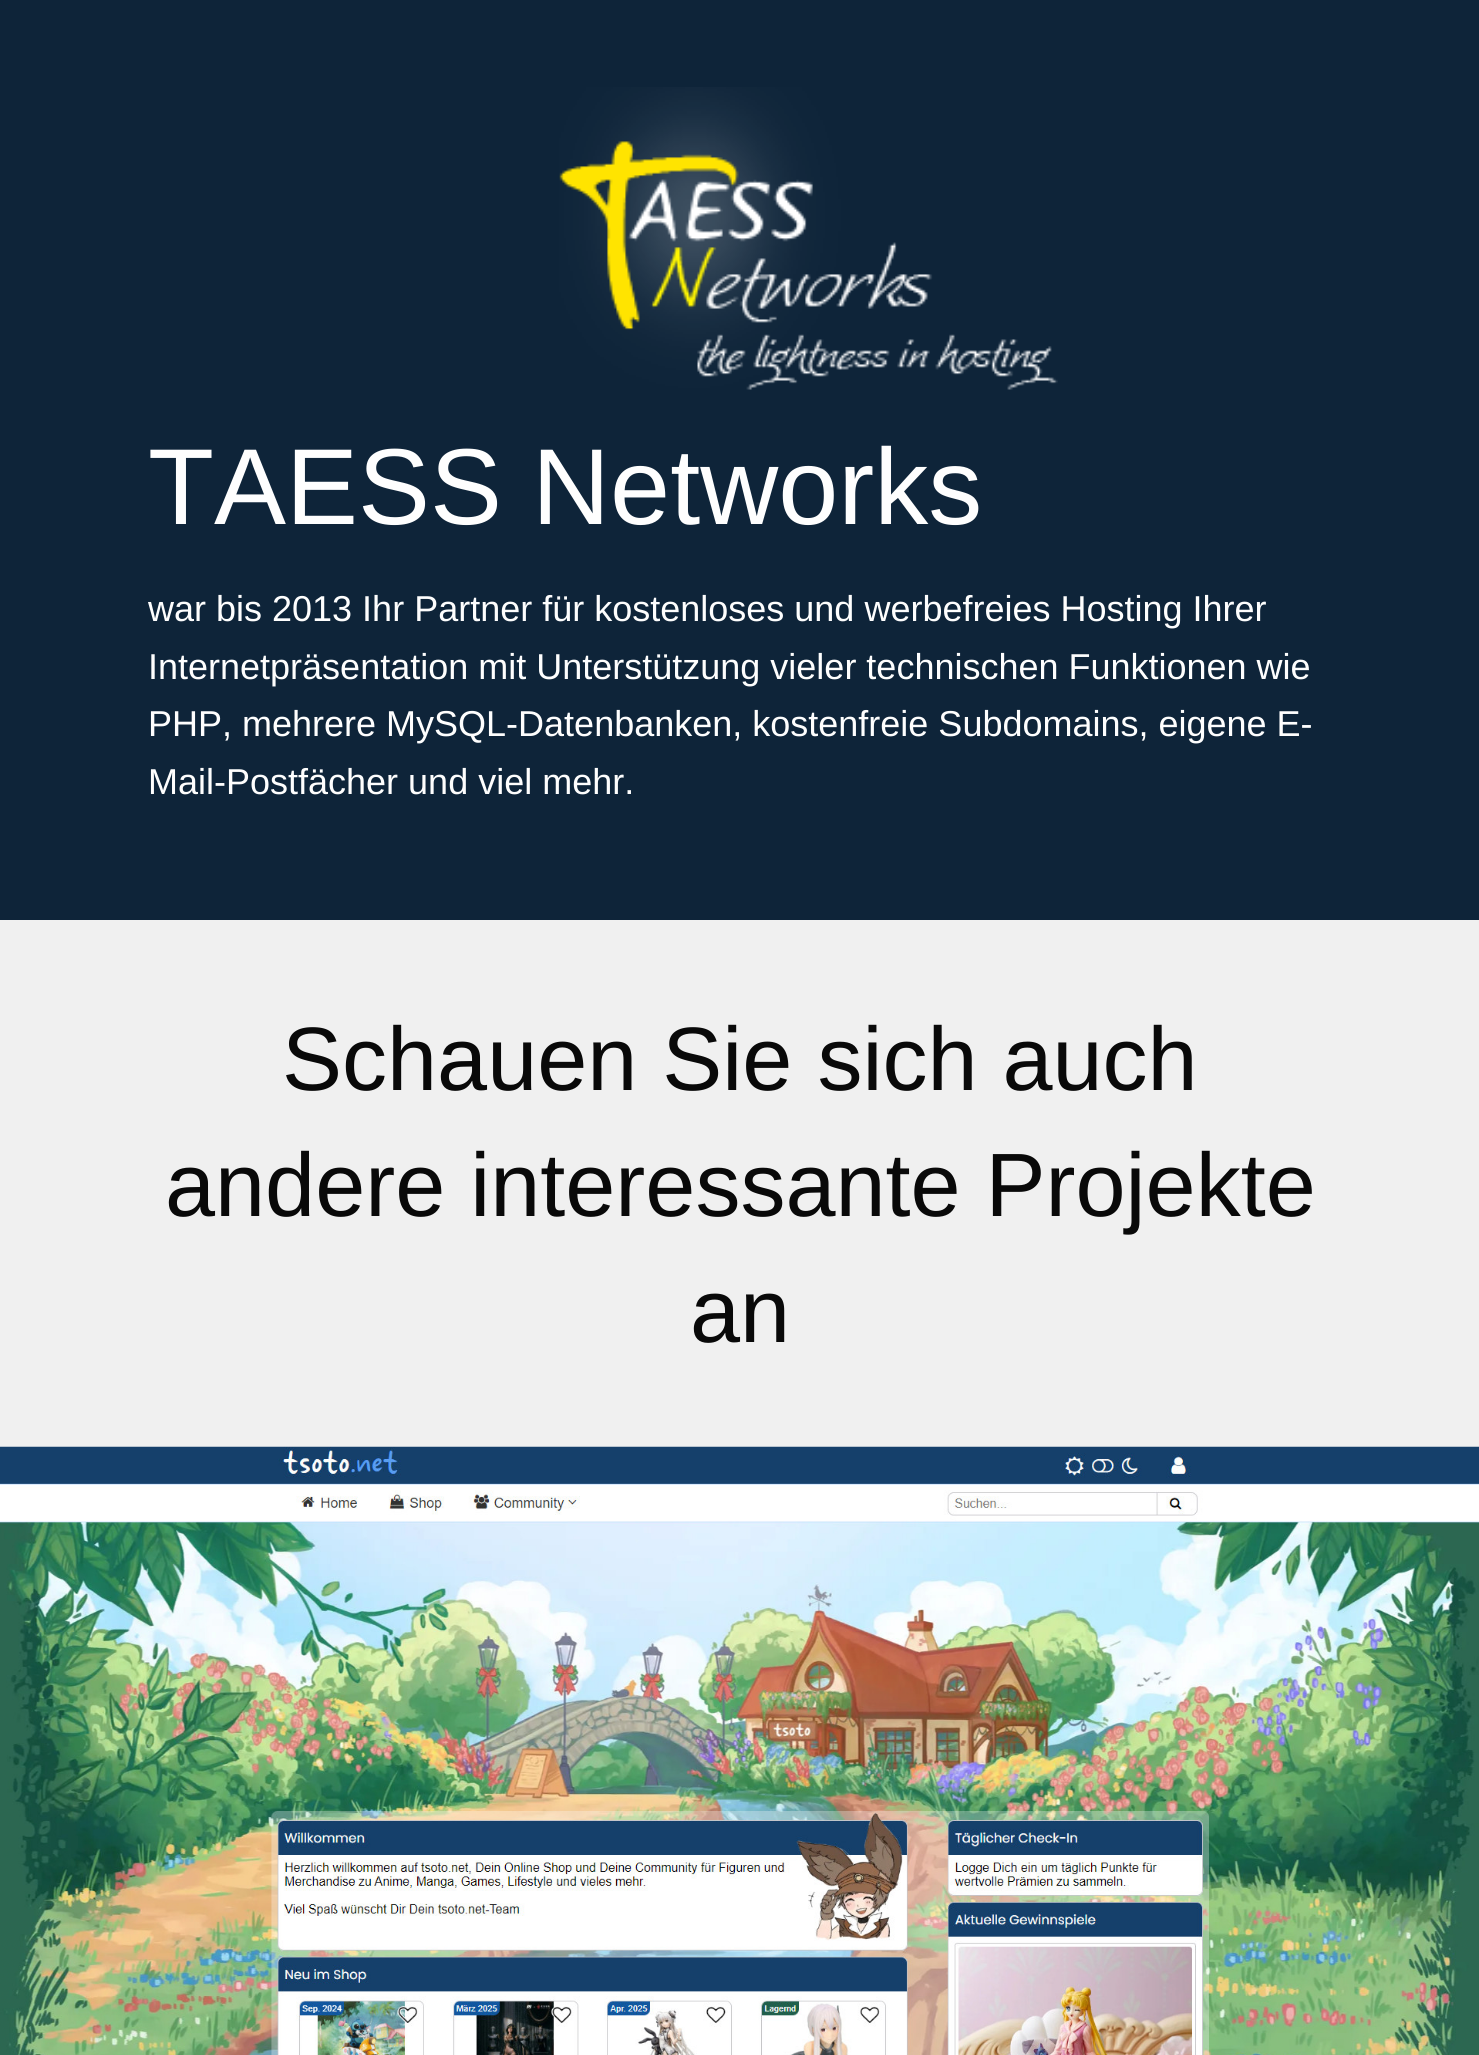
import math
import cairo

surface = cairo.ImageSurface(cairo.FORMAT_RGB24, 1479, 2055)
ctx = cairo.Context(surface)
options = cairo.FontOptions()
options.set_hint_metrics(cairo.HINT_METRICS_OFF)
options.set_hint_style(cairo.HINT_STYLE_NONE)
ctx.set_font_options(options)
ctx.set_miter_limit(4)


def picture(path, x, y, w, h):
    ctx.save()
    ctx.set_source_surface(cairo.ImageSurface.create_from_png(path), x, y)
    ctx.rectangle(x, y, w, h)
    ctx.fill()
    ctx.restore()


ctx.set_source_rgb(0.055, 0.141, 0.224)
ctx.paint()
picture("img1.png", 559, 87, 499, 303)
ctx.select_font_face("Liberation Sans")
ctx.set_font_size(108)
ctx.set_source_rgb(0.996, 0.996, 0.996)
ctx.move_to(148, 524)
ctx.show_text("TAESS Networks")
ctx.set_font_size(36)
ctx.move_to(148, 621)
ctx.show_text("war bis 2013 Ihr Partner für kostenloses und werbefreies Hosting Ihrer")
ctx.move_to(148, 679)
ctx.show_text("Internetpräsentation mit Unterstützung vieler technischen Funktionen wie")
ctx.move_to(148, 736)
ctx.show_text("PHP, mehrere MySQL-Datenbanken, kostenfreie Subdomains, eigene E-")
ctx.move_to(148, 794)
ctx.show_text("Mail-Postfächer und viel mehr.")
ctx.set_source_rgb(0.941, 0.941, 0.941)
ctx.rectangle(0, 920, 1479, 527)
ctx.fill()
ctx.set_font_size(90)
ctx.set_source_rgb(0.039, 0.039, 0.039)
ctx.move_to(282, 1090)
ctx.show_text("Schauen Sie sich auch")
ctx.move_to(165, 1216)
ctx.show_text("andere interessante Projekte")
ctx.move_to(690, 1342)
ctx.show_text("an")
picture("img2.png", 0, 1446, 1479, 609)
surface.write_to_png("page.png")
